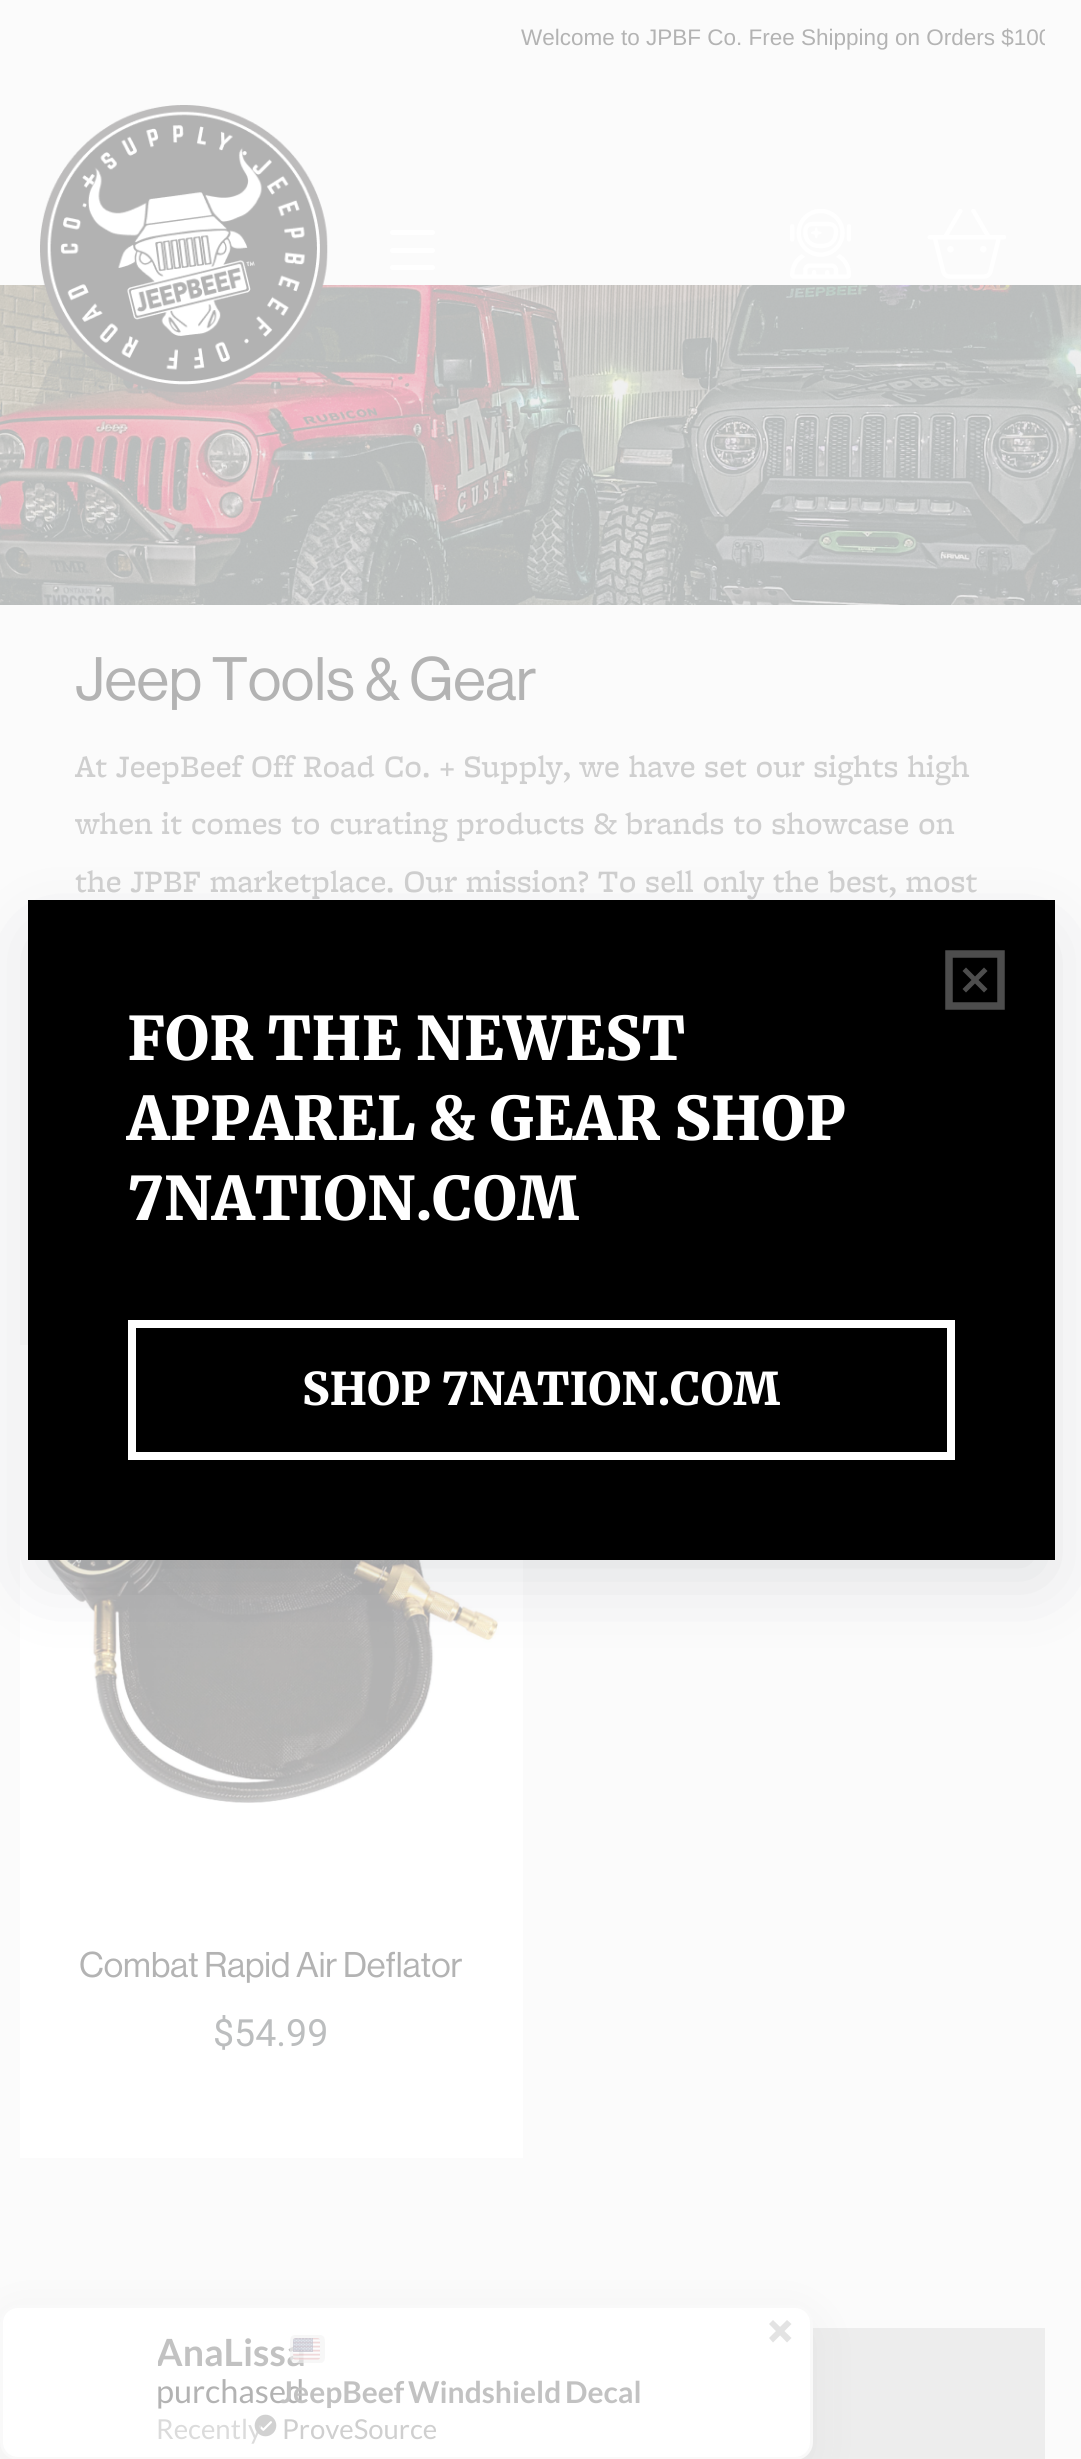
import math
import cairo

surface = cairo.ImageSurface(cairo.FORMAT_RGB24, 1081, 2459)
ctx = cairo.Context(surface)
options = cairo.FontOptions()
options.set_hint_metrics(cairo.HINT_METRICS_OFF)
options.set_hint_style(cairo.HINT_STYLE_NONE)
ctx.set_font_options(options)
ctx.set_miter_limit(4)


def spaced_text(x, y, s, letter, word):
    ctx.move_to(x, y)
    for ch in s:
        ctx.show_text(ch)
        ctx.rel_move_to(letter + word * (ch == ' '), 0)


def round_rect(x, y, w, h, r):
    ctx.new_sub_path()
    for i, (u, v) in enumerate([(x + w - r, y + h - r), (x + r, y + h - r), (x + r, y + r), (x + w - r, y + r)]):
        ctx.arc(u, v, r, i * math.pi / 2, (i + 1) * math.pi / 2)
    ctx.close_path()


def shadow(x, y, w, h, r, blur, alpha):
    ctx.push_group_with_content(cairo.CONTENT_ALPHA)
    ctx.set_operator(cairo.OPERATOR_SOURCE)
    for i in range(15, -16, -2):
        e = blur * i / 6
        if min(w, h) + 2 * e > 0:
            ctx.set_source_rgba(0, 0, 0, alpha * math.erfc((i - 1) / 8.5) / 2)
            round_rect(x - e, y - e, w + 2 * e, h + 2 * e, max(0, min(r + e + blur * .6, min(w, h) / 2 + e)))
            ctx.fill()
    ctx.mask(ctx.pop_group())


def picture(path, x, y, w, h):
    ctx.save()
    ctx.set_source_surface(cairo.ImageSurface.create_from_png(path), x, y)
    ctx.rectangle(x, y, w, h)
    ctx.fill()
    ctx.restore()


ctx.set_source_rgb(0.984, 0.984, 0.984)
ctx.paint()
ctx.save()
ctx.rectangle(38, 13, 1007, 55)
ctx.clip()
ctx.select_font_face("Liberation Sans")
ctx.set_font_size(22.5)
ctx.set_source_rgb(0.702, 0.702, 0.702)
ctx.move_to(521, 45)
ctx.show_text("Welcome to JPBF Co. Free Shipping on Orders $100")
ctx.restore()
picture("img4.png", 0, 285, 1081, 320)
picture("img1.png", 40, 105, 288, 288)
ctx.set_source_rgb(1, 1, 1)
round_rect(390, 248, 45, 5, 2.5)
ctx.fill()
round_rect(390, 230, 45, 5, 2.5)
ctx.fill()
round_rect(390, 265, 45, 5, 2.5)
ctx.fill()
picture("img2.png", 790, 209, 61, 70)
picture("img3.png", 927, 209, 79, 70)
ctx.select_font_face("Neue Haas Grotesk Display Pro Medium")
ctx.set_font_size(60)
ctx.set_source_rgb(0.702, 0.702, 0.702)
ctx.move_to(75, 700)
ctx.show_text("Jeep Tools & Gear")
ctx.select_font_face("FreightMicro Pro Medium")
ctx.set_font_size(32.5)
ctx.set_source_rgb(0.812, 0.812, 0.812)
ctx.move_to(75, 777)
ctx.show_text("At JeepBeef Off Road Co. + Supply, we have set our sights high")
ctx.save()
ctx.rectangle(75, 738, 933, 342)
ctx.clip()
ctx.move_to(75, 834)
ctx.show_text("when it comes to curating products & brands to showcase on")
ctx.restore()
ctx.move_to(75, 892)
ctx.show_text("the JPBF marketplace. Our mission? To sell only the best, most")
ctx.set_source_rgb(1, 1, 1)
ctx.rectangle(20, 1345, 503, 813)
ctx.fill()
picture("img5.png", 43, 1560, 456, 243)
ctx.select_font_face("Neue Haas Grotesk Display Pro Medium")
ctx.set_font_size(35)
ctx.set_source_rgb(0.702, 0.702, 0.702)
ctx.move_to(79, 1977)
ctx.show_text("Combat Rapid Air Deflator")
ctx.select_font_face("Roboto")
ctx.set_font_size(37.5)
ctx.set_source_rgb(0.737, 0.745, 0.749)
ctx.move_to(213, 2046)
ctx.show_text("$54.99")
ctx.set_source_rgb(0.929, 0.929, 0.929)
ctx.rectangle(801, 2328, 244, 131)
ctx.fill()
ctx.set_source_rgb(0.212, 0.239, 0.302)
shadow(40, 940, 1003, 635, 0, 40, 0.15)
ctx.set_source_rgb(0, 0, 0)
ctx.rectangle(28, 900, 1027, 660)
ctx.fill()
ctx.new_path()
ctx.move_to(1001, 954)
ctx.line_to(1001, 1006)
ctx.line_to(949, 1006)
ctx.line_to(949, 954)
ctx.close_path()
ctx.set_source_rgb(0.302, 0.302, 0.302)
ctx.set_line_width(7.5)
ctx.stroke()
ctx.new_path()
ctx.move_to(987.5, 971)
ctx.line_to(984, 967.5)
ctx.line_to(975, 976.5)
ctx.line_to(966, 967.5)
ctx.line_to(962.5, 971)
ctx.line_to(971.5, 980)
ctx.line_to(962.5, 989)
ctx.line_to(966, 992.5)
ctx.line_to(975, 983.5)
ctx.line_to(984, 992.5)
ctx.line_to(987.5, 989)
ctx.line_to(978.5, 980)
ctx.close_path()
ctx.fill()
ctx.select_font_face("Merriweather Black")
ctx.set_font_size(60)
ctx.set_source_rgb(1, 1, 1)
ctx.move_to(127, 1060)
ctx.show_text("FOR THE NEWEST")
ctx.move_to(127, 1140)
ctx.show_text("APPAREL & GEAR SHOP")
ctx.move_to(127, 1220)
ctx.show_text("7NATION.COM")
ctx.rectangle(132, 1324, 819, 132)
ctx.set_line_width(8)
ctx.stroke()
ctx.set_font_size(45)
ctx.move_to(302, 1405)
ctx.show_text("SHOP 7NATION.COM")
ctx.set_source_rgb(0.702, 0.702, 0.702)
shadow(0, 2318, 813, 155, 18, 25, 0.15)
ctx.set_source_rgb(1, 1, 1)
round_rect(1.5, 2306.5, 810, 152, 16.5)
ctx.fill_preserve()
ctx.set_source_rgb(0.976, 0.976, 0.976)
ctx.set_line_width(3)
ctx.stroke()
ctx.set_source_rgb(0.89, 0.89, 0.89)
ctx.new_path()
ctx.move_to(773, 2320)
ctx.line_to(791.5, 2338)
ctx.line_to(787, 2342.5)
ctx.line_to(769, 2324)
ctx.close_path()
ctx.fill()
ctx.new_path()
ctx.move_to(787, 2320)
ctx.line_to(791.5, 2324)
ctx.line_to(773, 2342.5)
ctx.line_to(769, 2338)
ctx.close_path()
ctx.fill()
ctx.save()
ctx.rectangle(158, 2323, 415, 45)
ctx.clip()
ctx.select_font_face("Lato", cairo.FONT_SLANT_NORMAL, cairo.FONT_WEIGHT_BOLD)
ctx.set_font_size(37.5)
ctx.set_source_rgb(0.761, 0.761, 0.761)
ctx.move_to(156, 2366)
ctx.show_text("AnaLissa")
ctx.restore()
ctx.set_source_rgba(0.949, 0.949, 0.949, 0.6)
ctx.new_path()
ctx.move_to(295, 2335)
ctx.curve_to(289, 2335, 290, 2342, 290, 2346)
ctx.line_to(290, 2355)
ctx.curve_to(290, 2362.5, 292, 2363, 299, 2363)
ctx.line_to(320, 2363)
ctx.curve_to(325, 2363, 325, 2359, 325, 2355)
ctx.line_to(325, 2344)
ctx.curve_to(325, 2340, 325, 2335, 320, 2335)
ctx.close_path()
ctx.fill()
picture("img6.png", 293, 2338, 27, 22)
ctx.select_font_face("Lato")
ctx.set_font_size(32.5)
ctx.set_source_rgb(0.702, 0.702, 0.702)
ctx.move_to(156, 2403)
ctx.show_text("purchased")
ctx.select_font_face("Lato", cairo.FONT_SLANT_NORMAL, cairo.FONT_WEIGHT_BOLD)
ctx.set_font_size(30)
ctx.set_source_rgb(0.761, 0.761, 0.761)
spaced_text(280, 2403, "JeepBeef Windshield Decal", 0, -2)
ctx.select_font_face("Lato")
ctx.set_font_size(27.5)
ctx.set_source_rgb(0.859, 0.859, 0.859)
ctx.move_to(156, 2439)
ctx.show_text("Recently")
picture("img7.png", 254, 2414, 23, 23)
ctx.set_source_rgb(0.812, 0.812, 0.812)
ctx.move_to(282, 2439)
ctx.show_text("ProveSource")
surface.write_to_png("page.png")
